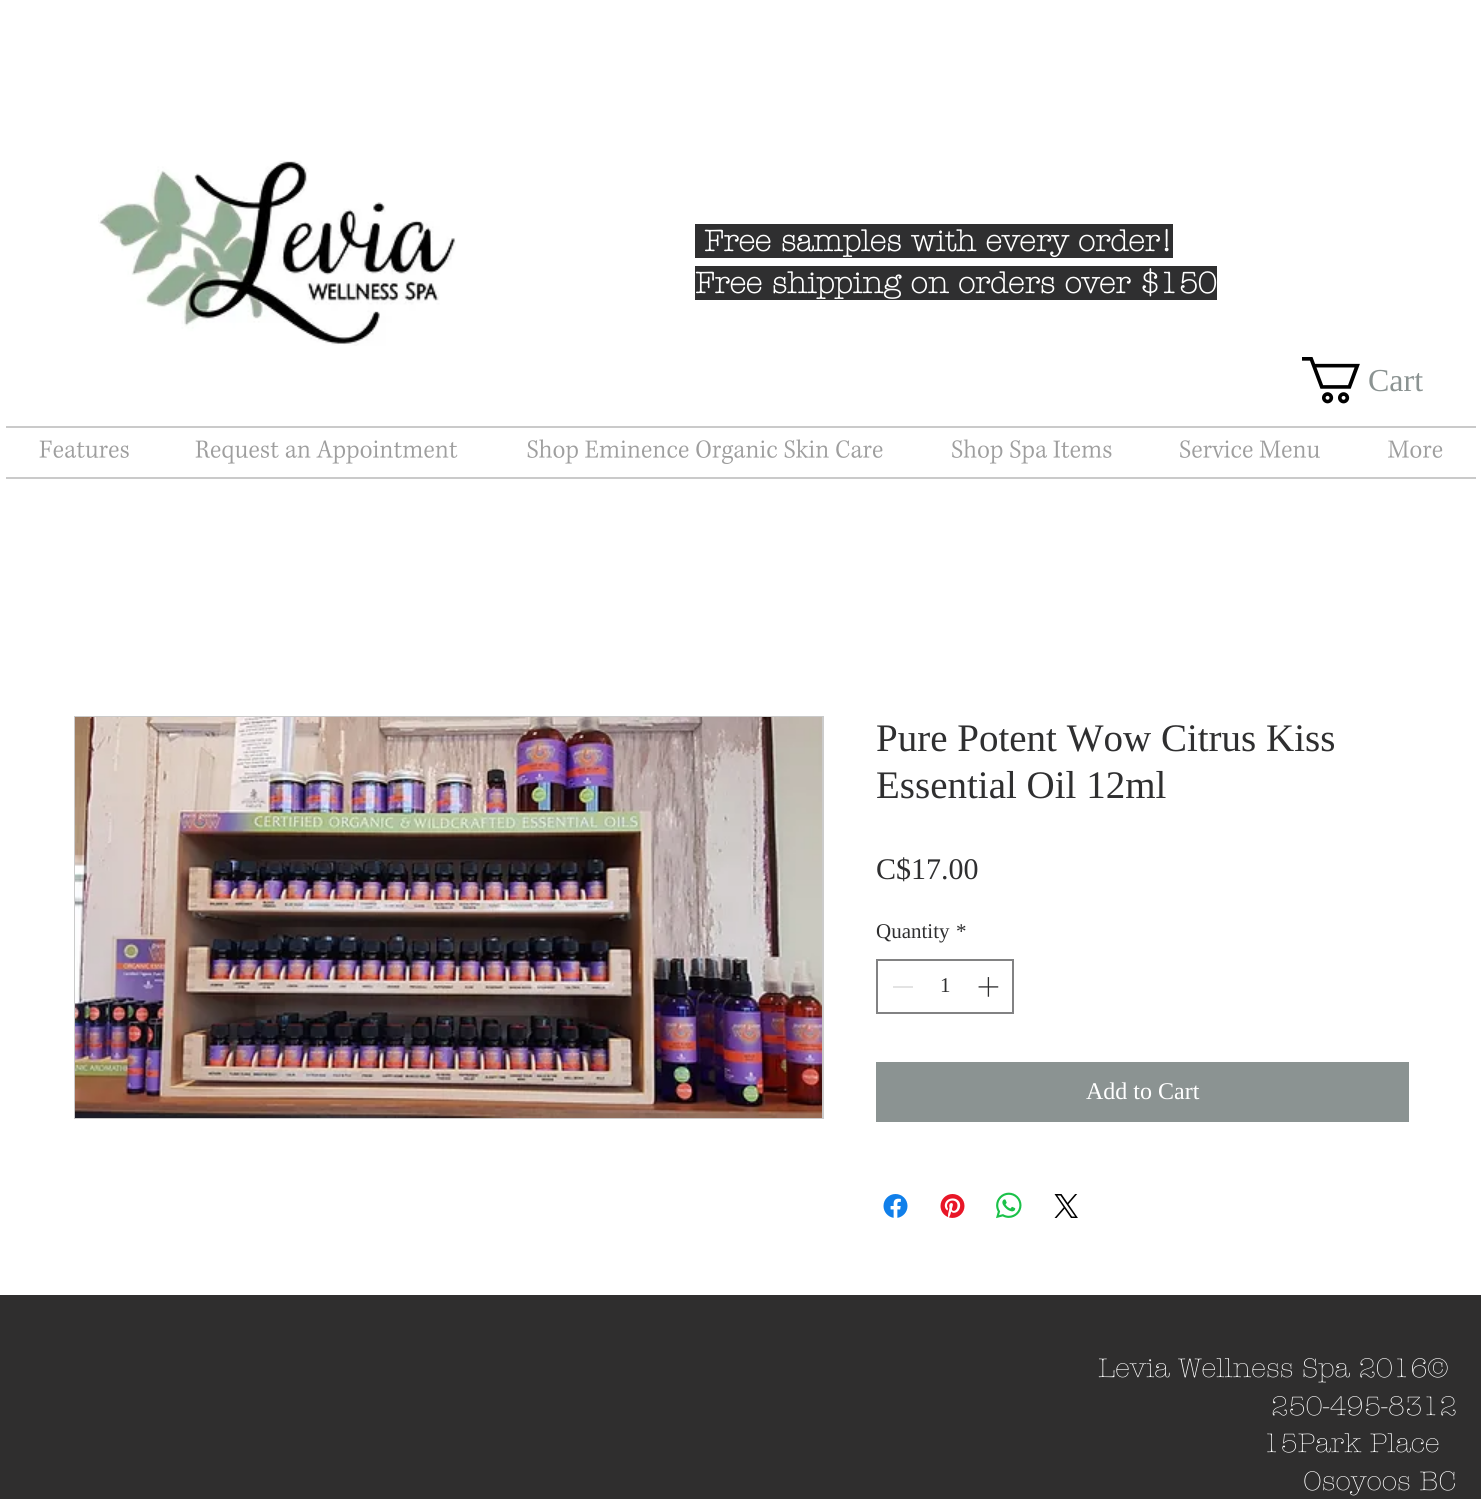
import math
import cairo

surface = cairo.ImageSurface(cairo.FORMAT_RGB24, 1481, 1499)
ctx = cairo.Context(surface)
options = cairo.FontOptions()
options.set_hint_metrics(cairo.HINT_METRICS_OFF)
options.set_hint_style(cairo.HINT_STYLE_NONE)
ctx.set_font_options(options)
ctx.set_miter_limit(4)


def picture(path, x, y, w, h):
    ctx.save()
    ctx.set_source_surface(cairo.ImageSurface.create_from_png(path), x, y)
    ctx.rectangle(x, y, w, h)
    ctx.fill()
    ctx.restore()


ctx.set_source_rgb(1, 1, 1)
ctx.paint()
picture("img1.png", 98, 160, 358, 186)
ctx.set_source_rgb(0.184, 0.184, 0.188)
ctx.rectangle(695, 224, 478, 34)
ctx.fill()
ctx.select_font_face("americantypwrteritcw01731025", cairo.FONT_SLANT_NORMAL, cairo.FONT_WEIGHT_BOLD)
ctx.set_font_size(30)
ctx.set_source_rgb(1, 1, 1)
ctx.move_to(704, 251)
ctx.show_text("Free samples with every order!")
ctx.set_source_rgb(0.184, 0.184, 0.188)
ctx.rectangle(695, 266, 522, 34)
ctx.fill()
ctx.set_source_rgb(1, 1, 1)
ctx.move_to(695, 293)
ctx.show_text("Free shipping on orders over $150")
picture("img2.png", 1302, 357, 58, 47)
ctx.select_font_face("Liberation Serif")
ctx.set_font_size(32)
ctx.set_source_rgb(0.545, 0.576, 0.573)
ctx.move_to(1368, 391)
ctx.show_text("Cart")
ctx.set_source_rgb(0.792, 0.792, 0.792)
ctx.rectangle(6, 426, 1470, 2)
ctx.fill()
ctx.rectangle(6, 477, 1470, 2)
ctx.fill()
picture("img3.png", 39, 440, 90, 18)
picture("img4.png", 195, 440, 263, 24)
picture("img5.png", 527, 439, 356, 25)
picture("img6.png", 952, 439, 160, 25)
picture("img7.png", 1180, 440, 140, 18)
picture("img8.png", 1388, 440, 55, 18)
ctx.rectangle(75, 717, 748, 401)
ctx.set_source_rgb(0.796, 0.796, 0.796)
ctx.stroke()
picture("img9.png", 75, 717, 747, 401)
ctx.set_font_size(39)
ctx.set_source_rgb(0.184, 0.184, 0.188)
ctx.move_to(876, 751)
ctx.show_text("Pure Potent Wow Citrus Kiss")
ctx.move_to(876, 798)
ctx.show_text("Essential Oil 12ml")
ctx.set_font_size(30)
ctx.move_to(876, 879)
ctx.show_text("C$17.00")
ctx.set_font_size(21)
ctx.move_to(876, 938)
ctx.show_text("Quantity")
ctx.move_to(956, 938)
ctx.show_text("*")
ctx.rectangle(877, 960, 136, 53)
ctx.set_source_rgb(0.51, 0.51, 0.514)
ctx.stroke()
ctx.set_source_rgb(0.89, 0.89, 0.89)
ctx.rectangle(893, 986, 20, 2)
ctx.fill()
ctx.set_source_rgb(0.184, 0.184, 0.188)
ctx.move_to(940, 992)
ctx.show_text("1")
picture("img10.png", 978, 977, 21, 20)
ctx.set_source_rgb(0.545, 0.576, 0.573)
ctx.rectangle(876, 1062, 533, 60)
ctx.fill()
ctx.set_font_size(24)
ctx.set_source_rgb(1, 1, 1)
ctx.move_to(1086, 1099)
ctx.show_text("Add to Cart")
picture("img11.png", 883, 1194, 25, 24)
picture("img12.png", 940, 1194, 25, 24)
picture("img13.png", 996, 1192, 26, 27)
picture("img14.png", 1054, 1194, 24, 24)
ctx.set_source_rgb(0.184, 0.18, 0.18)
ctx.rectangle(0, 1295, 1481, 204)
ctx.fill()
ctx.select_font_face("americantypwrteritcw01731025 Light")
ctx.set_font_size(27)
ctx.set_source_rgb(1, 1, 1)
ctx.move_to(1098, 1377)
ctx.show_text("Levia Wellness Spa 2016©")
ctx.move_to(1271, 1415)
ctx.show_text("250-495-8312")
ctx.move_to(1263, 1452)
ctx.show_text("15Park Place")
ctx.move_to(1303, 1490)
ctx.show_text("Osoyoos BC")
surface.write_to_png("page.png")
